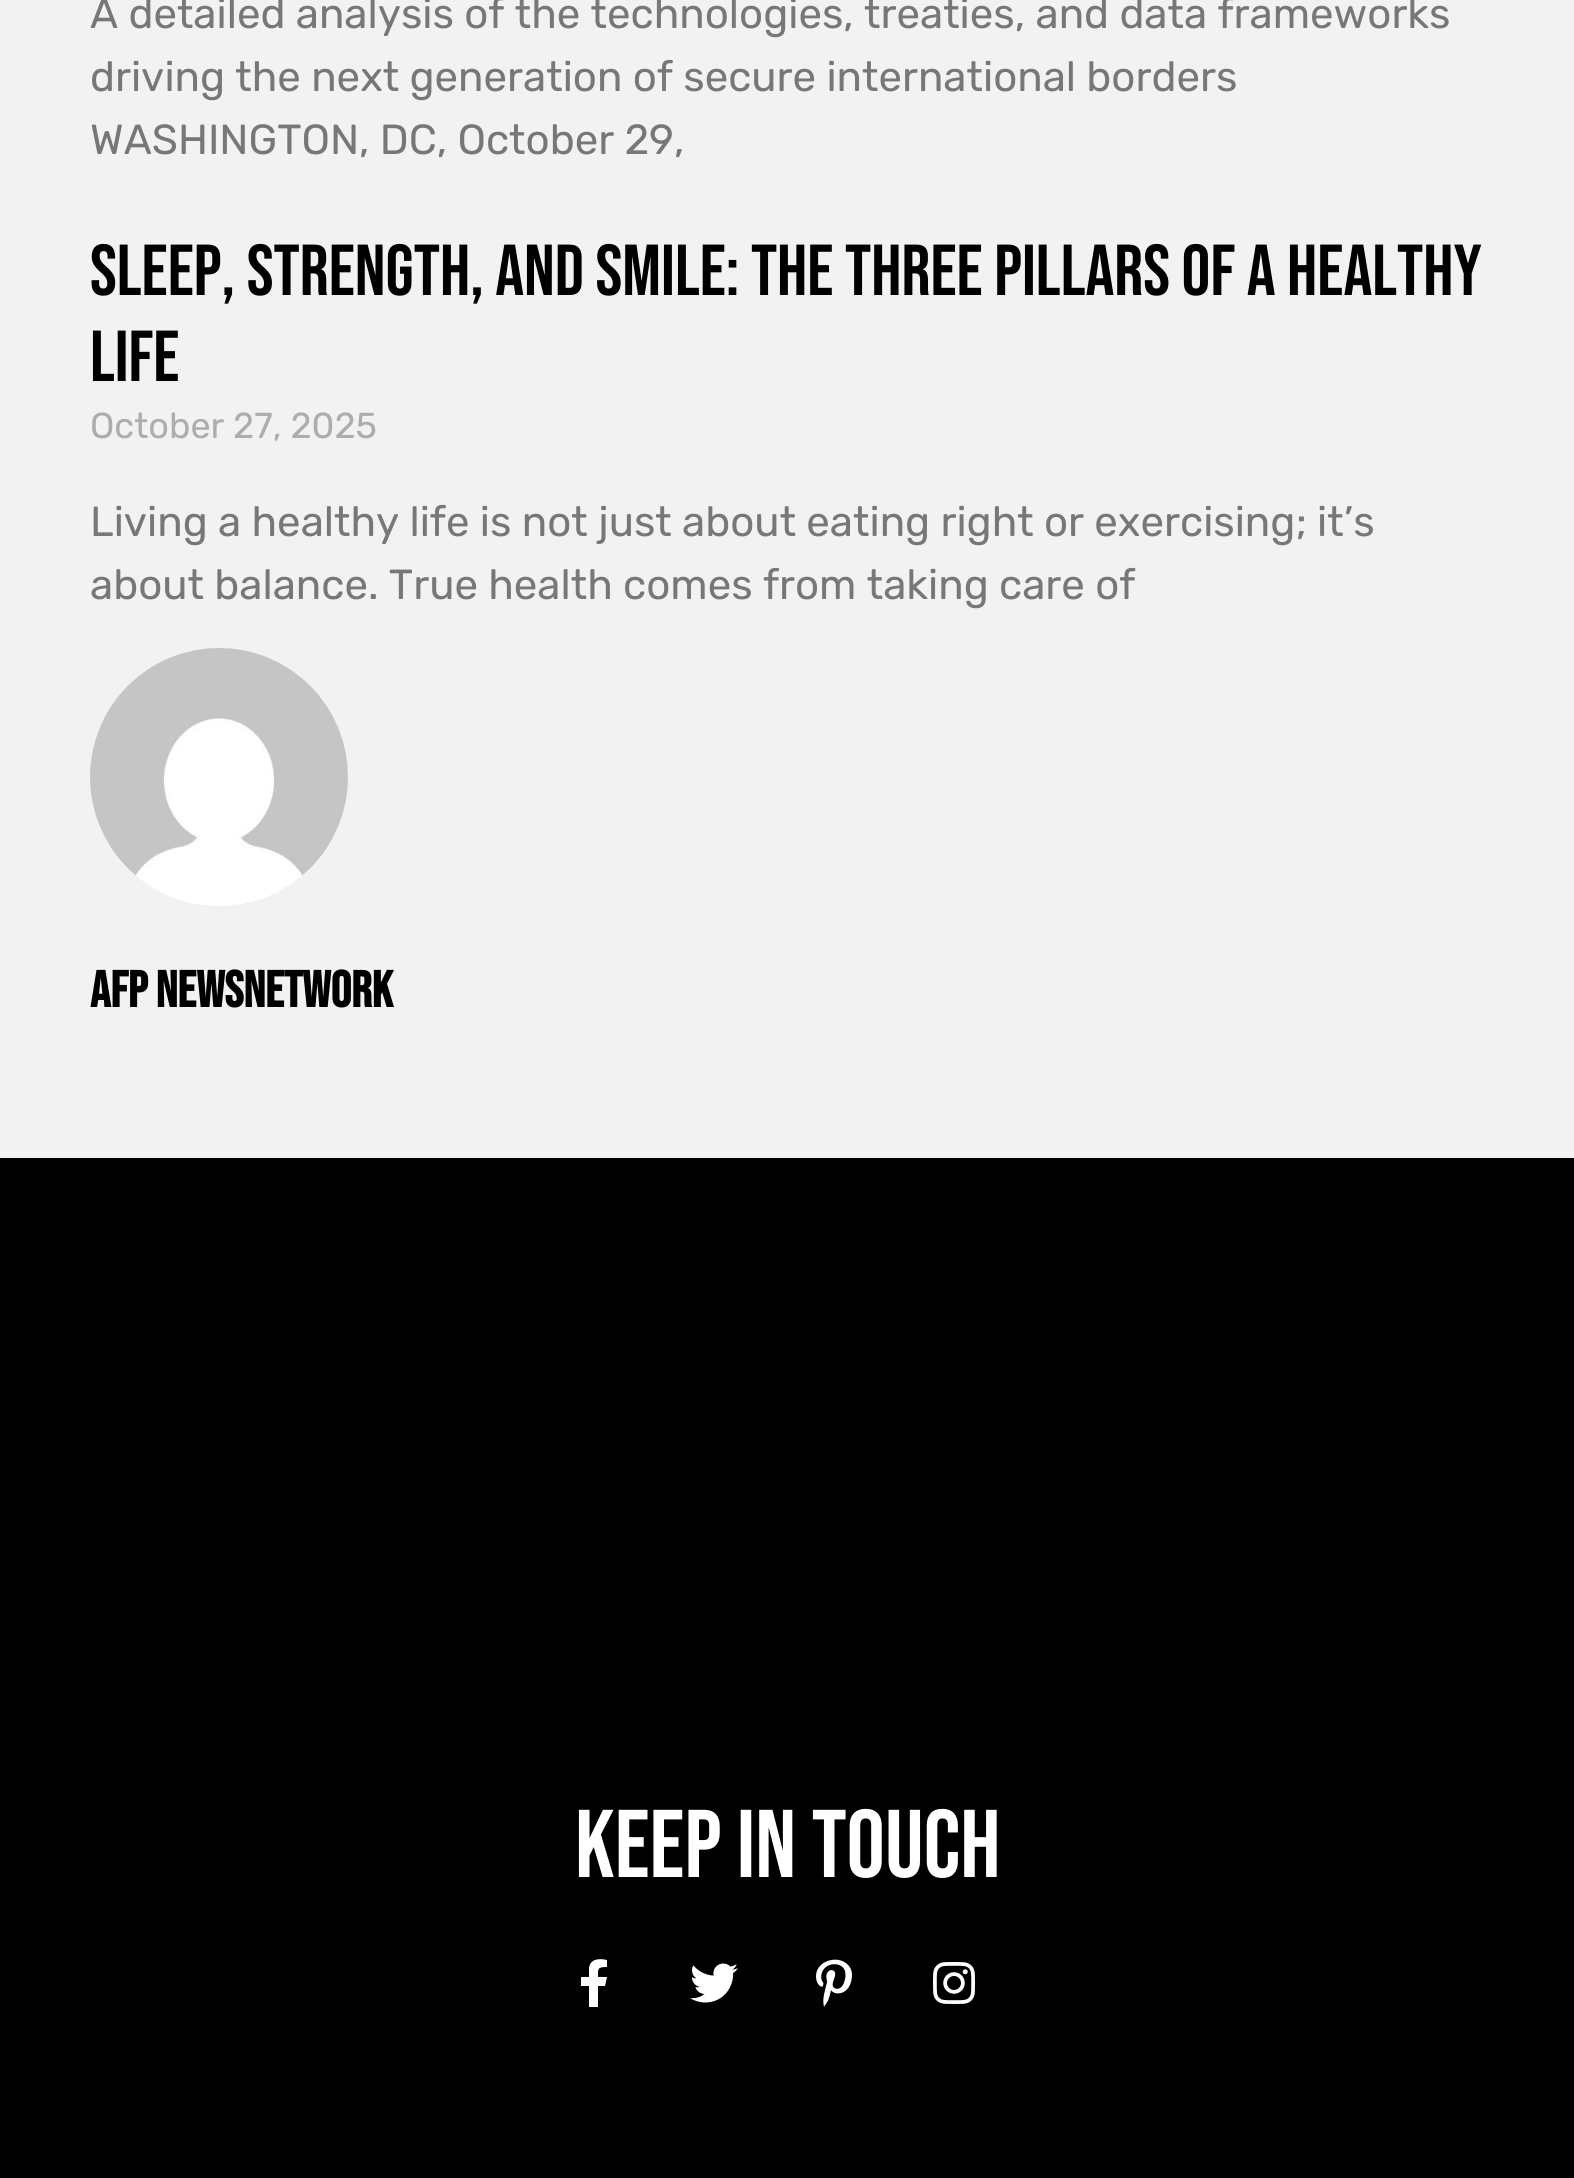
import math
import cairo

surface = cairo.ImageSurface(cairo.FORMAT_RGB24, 1574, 2178)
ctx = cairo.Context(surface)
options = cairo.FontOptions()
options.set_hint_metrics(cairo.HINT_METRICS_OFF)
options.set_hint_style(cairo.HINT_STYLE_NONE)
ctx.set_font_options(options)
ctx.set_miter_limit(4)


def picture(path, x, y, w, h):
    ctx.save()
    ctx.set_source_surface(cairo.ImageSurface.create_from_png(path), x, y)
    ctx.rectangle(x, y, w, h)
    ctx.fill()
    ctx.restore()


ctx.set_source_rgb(0.949, 0.949, 0.949)
ctx.paint()
ctx.select_font_face("Rubik")
ctx.set_font_size(42)
ctx.set_source_rgb(0.467, 0.467, 0.467)
ctx.move_to(90, 28)
ctx.show_text("A detailed analysis of the technologies, treaties, and data frameworks")
ctx.move_to(90, 91)
ctx.show_text("driving the next generation of secure international borders")
ctx.move_to(90, 154)
ctx.show_text("WASHINGTON, DC, October 29,")
ctx.select_font_face("Bebas Neue")
ctx.set_font_size(72)
ctx.set_source_rgb(0, 0, 0)
ctx.move_to(90, 295)
ctx.show_text("Sleep, Strength, and Smile: The Three Pillars of a Healthy")
ctx.move_to(90, 381)
ctx.show_text("Life")
ctx.select_font_face("Rubik")
ctx.set_font_size(36)
ctx.set_source_rgb(0.678, 0.678, 0.678)
ctx.move_to(90, 438)
ctx.show_text("October 27, 2025")
ctx.set_font_size(42)
ctx.set_source_rgb(0.467, 0.467, 0.467)
ctx.move_to(90, 536)
ctx.show_text("Living a healthy life is not just about eating right or exercising; it’s")
ctx.move_to(90, 599)
ctx.show_text("about balance. True health comes from taking care of")
picture("img1.png", 90, 648, 258, 258)
ctx.select_font_face("Bebas Neue", cairo.FONT_SLANT_NORMAL, cairo.FONT_WEIGHT_BOLD)
ctx.set_font_size(51)
ctx.set_source_rgb(0, 0, 0)
ctx.move_to(90, 1007)
ctx.show_text("AFP NewsNetwork")
ctx.rectangle(0, 1158, 1574, 1020)
ctx.fill()
ctx.select_font_face("Bebas Neue")
ctx.set_font_size(96)
ctx.set_source_rgb(1, 1, 1)
ctx.move_to(575, 1877)
ctx.show_text("Keep In Touch")
ctx.new_path()
ctx.move_to(605, 1986)
ctx.line_to(607, 1977)
ctx.line_to(598, 1977)
ctx.curve_to(598, 1969, 597, 1967, 607, 1967)
ctx.line_to(607, 1960)
ctx.curve_to(599, 1958, 590, 1959, 589, 1968)
ctx.line_to(589, 1977)
ctx.line_to(581, 1977)
ctx.line_to(581, 1986)
ctx.line_to(589, 1986)
ctx.line_to(589, 2007)
ctx.line_to(598, 2007)
ctx.line_to(598, 1986)
ctx.close_path()
ctx.fill()
picture("img2.png", 690, 1963, 48, 40)
picture("img3.png", 816, 1959, 36, 48)
picture("img4.png", 933, 1962, 42, 42)
surface.write_to_png("page.png")
